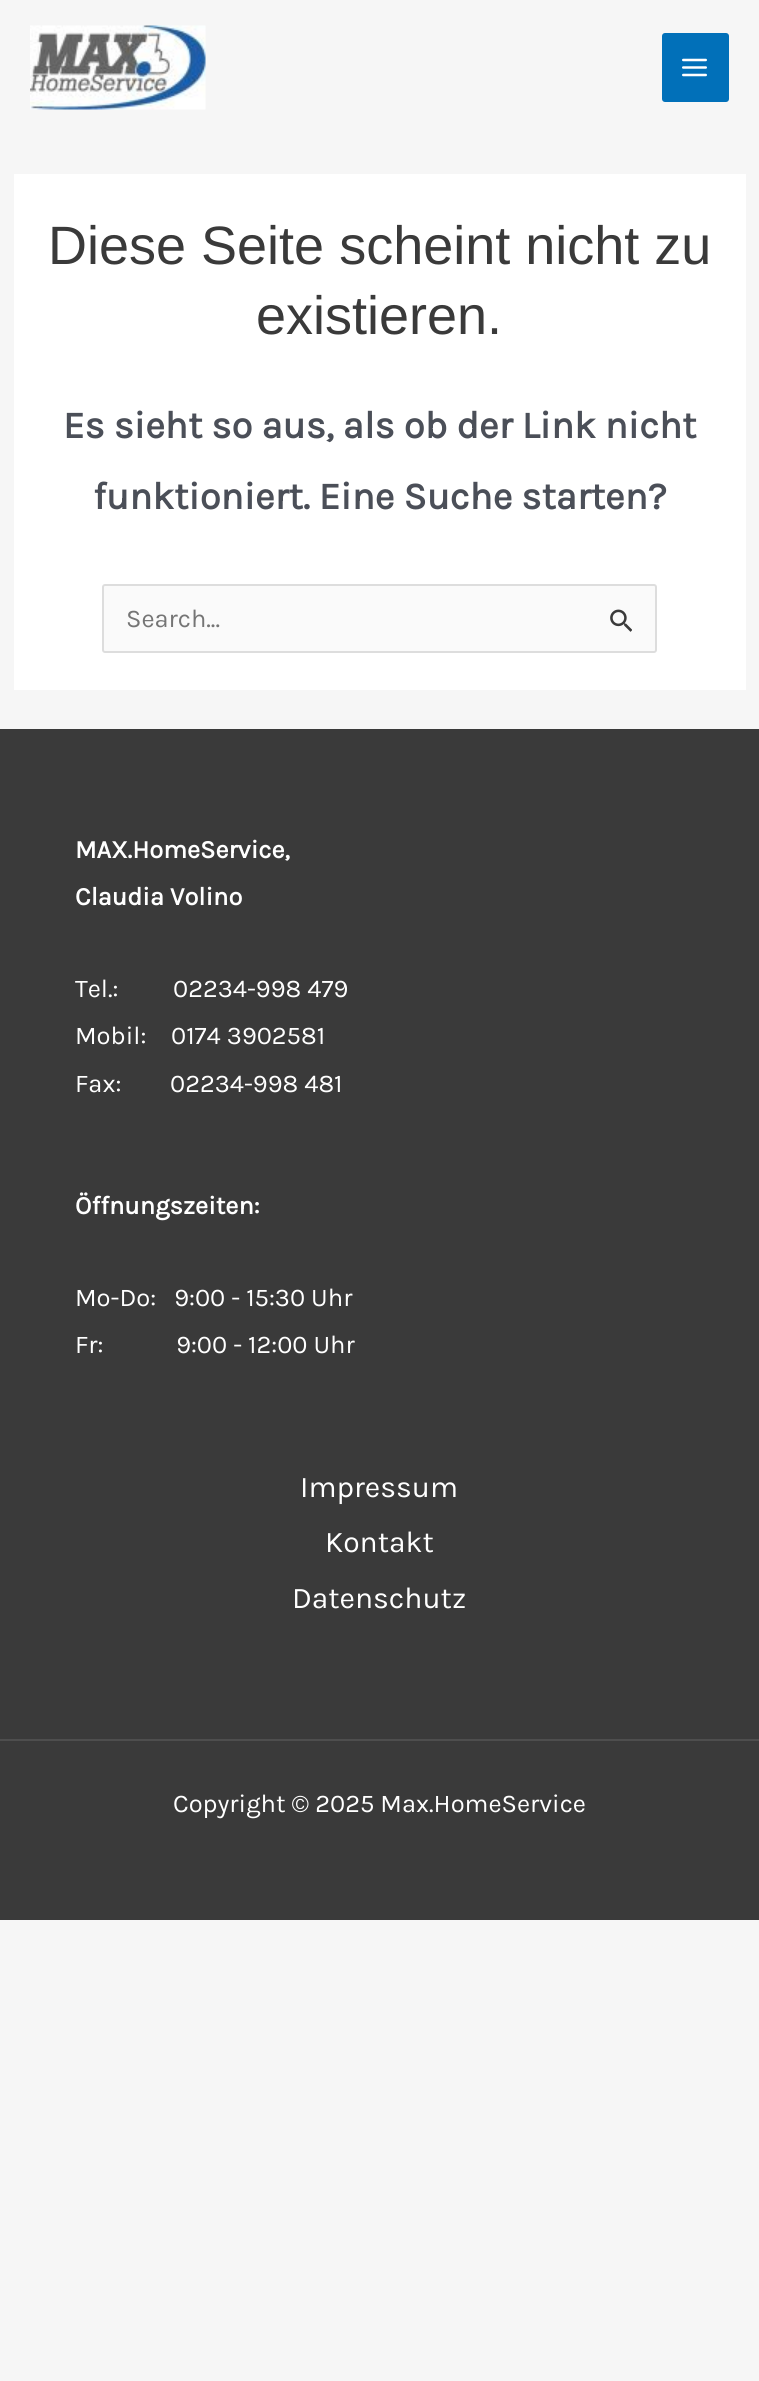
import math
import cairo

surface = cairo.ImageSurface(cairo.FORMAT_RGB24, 759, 2381)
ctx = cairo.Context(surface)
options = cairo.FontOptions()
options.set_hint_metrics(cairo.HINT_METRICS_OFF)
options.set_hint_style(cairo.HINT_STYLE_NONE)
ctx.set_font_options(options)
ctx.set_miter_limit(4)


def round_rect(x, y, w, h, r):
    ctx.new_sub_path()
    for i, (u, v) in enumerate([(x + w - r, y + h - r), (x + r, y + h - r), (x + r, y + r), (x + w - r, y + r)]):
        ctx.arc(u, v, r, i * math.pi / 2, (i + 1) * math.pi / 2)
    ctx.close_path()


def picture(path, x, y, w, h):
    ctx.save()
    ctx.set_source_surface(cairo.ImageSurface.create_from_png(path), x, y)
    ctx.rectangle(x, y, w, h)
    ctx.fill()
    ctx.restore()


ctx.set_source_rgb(0.961, 0.961, 0.961)
ctx.paint()
picture("img1.png", 30, 25, 176, 85)
ctx.set_source_rgb(0.004, 0.439, 0.725)
round_rect(662, 33, 67, 69, 3)
ctx.fill()
picture("img2.png", 682, 58, 25, 19)
ctx.set_source_rgb(1, 1, 1)
ctx.rectangle(14, 174, 732, 516)
ctx.fill()
ctx.select_font_face("Liberation Sans")
ctx.set_font_size(54)
ctx.set_source_rgb(0.227, 0.227, 0.227)
ctx.move_to(48, 264)
ctx.show_text("Diese Seite scheint nicht zu")
ctx.move_to(256, 334)
ctx.show_text("existieren.")
ctx.select_font_face("Karla", cairo.FONT_SLANT_NORMAL, cairo.FONT_WEIGHT_BOLD)
ctx.set_font_size(38.25)
ctx.set_source_rgb(0.294, 0.31, 0.345)
ctx.move_to(63, 438)
ctx.show_text("Es sieht so aus, als ob der Link nicht")
ctx.move_to(93, 509)
ctx.show_text("funktioniert. Eine Suche starten?")
ctx.set_source_rgb(0.98, 0.98, 0.98)
round_rect(103, 585, 553, 67, 2)
ctx.fill_preserve()
ctx.set_source_rgb(0.867, 0.867, 0.867)
ctx.stroke()
ctx.select_font_face("Karla")
ctx.set_font_size(25.5)
ctx.set_source_rgb(0.459, 0.459, 0.459)
ctx.move_to(126, 627)
ctx.show_text("Search...")
picture("img3.png", 610, 609, 22, 23)
ctx.set_source_rgb(0.227, 0.227, 0.227)
ctx.rectangle(0, 729, 759, 1010)
ctx.fill()
ctx.select_font_face("Karla", cairo.FONT_SLANT_NORMAL, cairo.FONT_WEIGHT_BOLD)
ctx.set_source_rgb(1, 1, 1)
ctx.move_to(75, 858)
ctx.show_text("MAX.HomeService,")
ctx.move_to(75, 905)
ctx.show_text("Claudia Volino")
ctx.select_font_face("Karla")
ctx.move_to(75, 997)
ctx.show_text("Tel.:")
ctx.move_to(173, 997)
ctx.show_text("02234-998 479")
ctx.move_to(75, 1044)
ctx.show_text("Mobil:")
ctx.move_to(171, 1044)
ctx.show_text("0174 3902581")
ctx.move_to(75, 1092)
ctx.show_text("Fax:")
ctx.move_to(170, 1092)
ctx.show_text("02234-998 481")
ctx.select_font_face("Karla", cairo.FONT_SLANT_NORMAL, cairo.FONT_WEIGHT_BOLD)
ctx.move_to(75, 1214)
ctx.show_text("Öffnungszeiten:")
ctx.select_font_face("Karla")
ctx.move_to(75, 1306)
ctx.show_text("Mo-Do:   9:00 - 15:30 Uhr")
ctx.move_to(75, 1353)
ctx.show_text("Fr:            9:00 - 12:00 Uhr")
ctx.set_font_size(30)
ctx.move_to(300, 1497)
ctx.show_text("Impressum")
ctx.move_to(325, 1552)
ctx.show_text("Kontakt")
ctx.move_to(292, 1608)
ctx.show_text("Datenschutz")
ctx.set_source_rgb(0.227, 0.227, 0.227)
ctx.rectangle(0, 1741, 759, 179)
ctx.fill()
ctx.set_source_rgb(0.306, 0.306, 0.306)
ctx.rectangle(0, 1739, 759, 2)
ctx.fill()
ctx.set_font_size(25.5)
ctx.set_source_rgb(1, 1, 1)
ctx.move_to(173, 1812)
ctx.show_text("Copyright © 2025 Max.HomeService")
surface.write_to_png("page.png")
